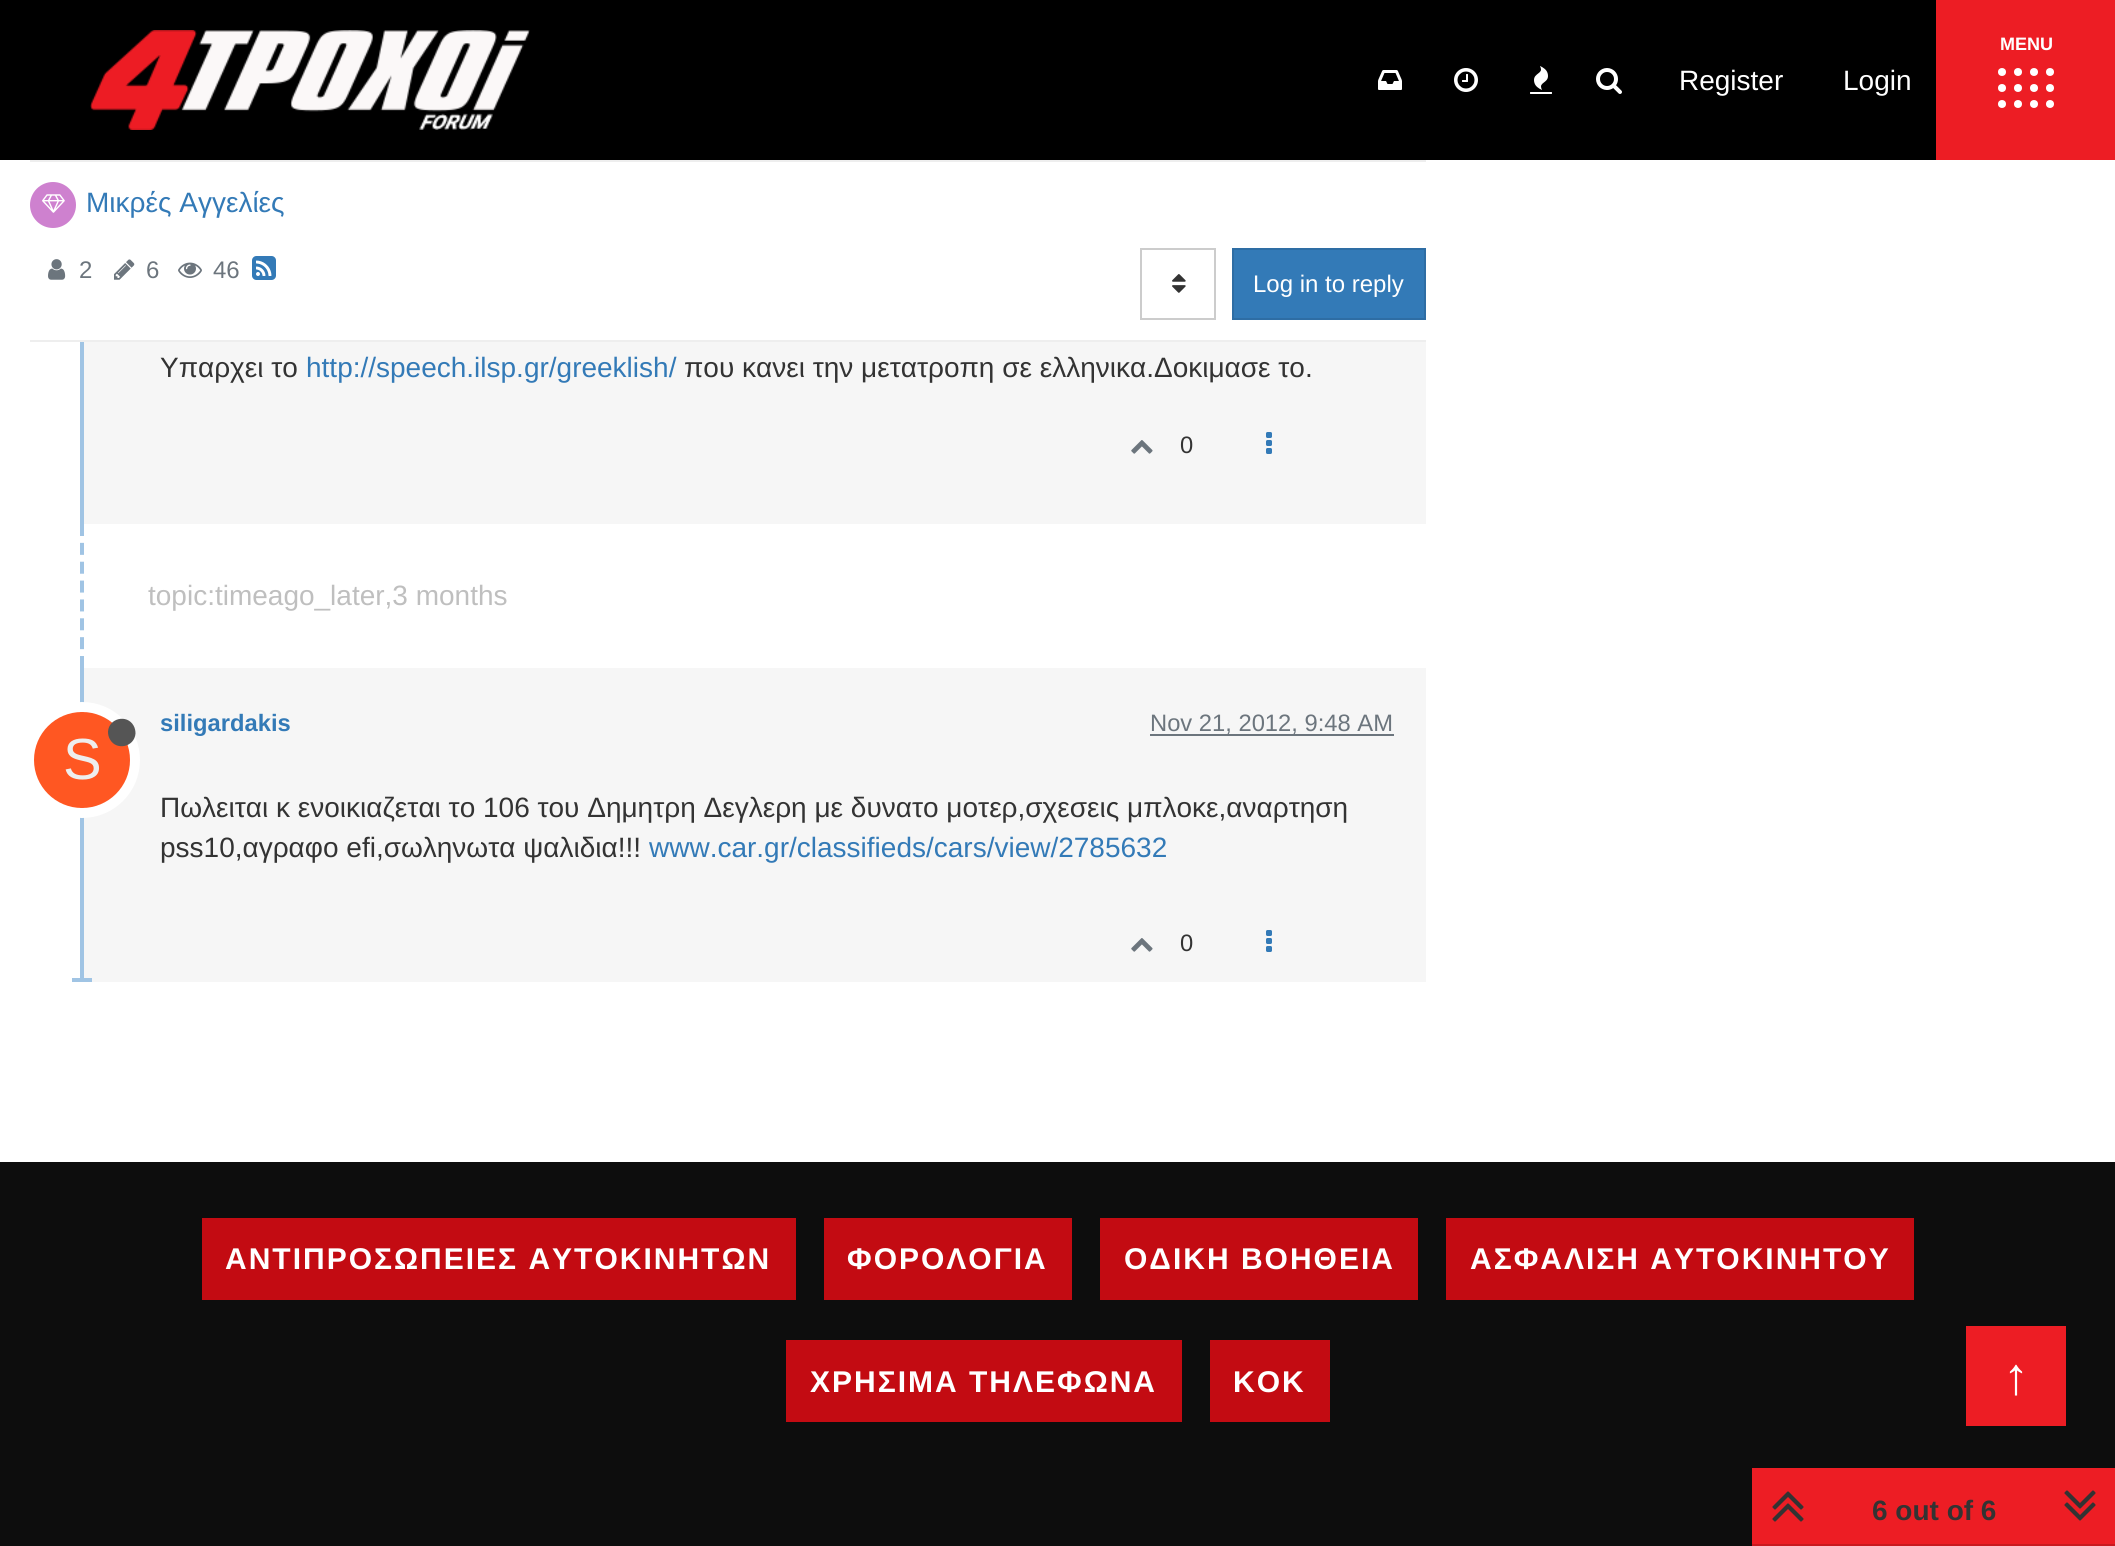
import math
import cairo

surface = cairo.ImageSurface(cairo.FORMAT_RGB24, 2115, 1546)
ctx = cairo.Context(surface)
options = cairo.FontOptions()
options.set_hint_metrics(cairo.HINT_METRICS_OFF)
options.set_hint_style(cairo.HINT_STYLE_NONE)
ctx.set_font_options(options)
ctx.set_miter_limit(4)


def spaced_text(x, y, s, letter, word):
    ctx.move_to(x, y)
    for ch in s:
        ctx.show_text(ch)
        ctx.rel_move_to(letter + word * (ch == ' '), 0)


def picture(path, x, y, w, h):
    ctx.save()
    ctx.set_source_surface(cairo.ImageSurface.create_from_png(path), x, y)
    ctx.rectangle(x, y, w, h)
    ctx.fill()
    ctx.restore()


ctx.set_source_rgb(1, 1, 1)
ctx.paint()
ctx.set_source_rgb(0, 0, 0)
ctx.rectangle(0, 0, 1936, 160)
ctx.fill()
picture("img1.png", 90, 30, 440, 100)
ctx.set_source_rgb(0.929, 0.114, 0.141)
ctx.rectangle(1936, 0, 179, 160)
ctx.fill()
ctx.select_font_face("Liberation Sans", cairo.FONT_SLANT_NORMAL, cairo.FONT_WEIGHT_BOLD)
ctx.set_font_size(18)
ctx.set_source_rgb(1, 1, 1)
ctx.move_to(2000, 50)
ctx.show_text("MENU")
ctx.new_path()
ctx.arc(2002, 72, 4, 0, 2 * math.pi)
ctx.fill()
ctx.arc(2018, 72, 4, 0, 2 * math.pi)
ctx.fill()
ctx.arc(2034, 72, 4, 0, 2 * math.pi)
ctx.fill()
ctx.arc(2050, 72, 4, 0, 2 * math.pi)
ctx.fill()
ctx.arc(2002, 88, 4, 0, 2 * math.pi)
ctx.fill()
ctx.arc(2018, 88, 4, 0, 2 * math.pi)
ctx.fill()
ctx.arc(2034, 88, 4, 0, 2 * math.pi)
ctx.fill()
ctx.arc(2050, 88, 4, 0, 2 * math.pi)
ctx.fill()
ctx.arc(2002, 104, 4, 0, 2 * math.pi)
ctx.fill()
ctx.arc(2018, 104, 4, 0, 2 * math.pi)
ctx.fill()
ctx.arc(2034, 104, 4, 0, 2 * math.pi)
ctx.fill()
ctx.arc(2050, 104, 4, 0, 2 * math.pi)
ctx.fill()
picture("img2.png", 1378, 70, 24, 20)
picture("img3.png", 1454, 68, 24, 24)
picture("img4.png", 1530, 66, 22, 28)
picture("img5.png", 1596, 68, 26, 26)
ctx.select_font_face("Liberation Sans")
ctx.set_font_size(28)
ctx.move_to(1679, 90)
ctx.show_text("Register")
ctx.move_to(1843, 90)
ctx.show_text("Login")
ctx.set_source_rgb(0.933, 0.933, 0.933)
ctx.rectangle(30, 160, 1396, 2)
ctx.fill()
ctx.rectangle(30, 340, 1396, 2)
ctx.fill()
ctx.set_source_rgb(0.808, 0.506, 0.812)
ctx.arc(53, 205, 23, 0, 2 * math.pi)
ctx.fill()
picture("img6.png", 42, 194, 23, 19)
ctx.set_source_rgb(0.2, 0.478, 0.718)
ctx.move_to(86, 212)
ctx.show_text("Μικρές Αγγελίες")
picture("img7.png", 48, 259, 18, 21)
ctx.set_font_size(24)
ctx.set_source_rgb(0.424, 0.459, 0.49)
ctx.move_to(79, 278)
ctx.show_text("2")
picture("img8.png", 114, 259, 21, 21)
ctx.move_to(146, 278)
ctx.show_text("6")
picture("img9.png", 178, 262, 24, 16)
ctx.move_to(213, 278)
ctx.show_text("46")
picture("img10.png", 252, 256, 24, 24)
ctx.rectangle(1141, 249, 74, 70)
ctx.set_source_rgb(0.8, 0.8, 0.8)
ctx.stroke()
picture("img11.png", 1172, 274, 14, 19)
ctx.set_source_rgb(0.2, 0.478, 0.718)
ctx.rectangle(1233, 249, 192, 70)
ctx.fill_preserve()
ctx.set_source_rgb(0.18, 0.427, 0.643)
ctx.stroke()
ctx.set_source_rgb(1, 1, 1)
ctx.move_to(1253, 292)
ctx.show_text("Log in to reply")
ctx.set_source_rgb(0.961, 0.961, 0.961)
ctx.rectangle(84, 342, 1342, 182)
ctx.fill()
ctx.set_source_rgb(0.627, 0.769, 0.894)
ctx.rectangle(80, 342, 4, 182)
ctx.fill()
ctx.set_font_size(28)
ctx.set_source_rgb(0.2, 0.2, 0.2)
ctx.move_to(160, 377)
ctx.show_text("Yπαρχει το")
ctx.set_source_rgb(0.2, 0.478, 0.718)
ctx.move_to(306, 377)
ctx.show_text("http://speech.ilsp.gr/greeklish/")
ctx.set_source_rgb(0.2, 0.2, 0.2)
ctx.move_to(684, 377)
ctx.show_text("που κανει την μετατροπη σε ελληνικα.Δοκιμασε το.")
picture("img12.png", 1131, 440, 22, 14)
ctx.set_font_size(23.75)
ctx.move_to(1180, 453)
ctx.show_text("0")
picture("img13.png", 1266, 432, 6, 22)
ctx.new_path()
ctx.move_to(82, 524)
ctx.line_to(82, 668)
ctx.set_source_rgb(0.627, 0.769, 0.894)
ctx.set_line_width(4)
ctx.set_dash([12, 6.86])
ctx.stroke()
ctx.set_font_size(28)
ctx.set_source_rgb(0.749, 0.749, 0.749)
ctx.move_to(148, 605)
ctx.show_text("topic:timeago_later,3 months")
ctx.set_source_rgb(0.961, 0.961, 0.961)
ctx.rectangle(84, 668, 1342, 314)
ctx.fill()
ctx.set_source_rgb(0.627, 0.769, 0.894)
ctx.rectangle(80, 668, 4, 314)
ctx.fill()
ctx.select_font_face("Liberation Sans", cairo.FONT_SLANT_NORMAL, cairo.FONT_WEIGHT_BOLD)
ctx.set_font_size(23.75)
ctx.set_source_rgb(0.2, 0.478, 0.718)
ctx.move_to(160, 731)
ctx.show_text("siligardakis")
ctx.set_source_rgb(0.424, 0.459, 0.49)
ctx.rectangle(1150, 734, 244, 2)
ctx.fill()
ctx.select_font_face("Liberation Sans")
ctx.move_to(1150, 731)
ctx.show_text("Nov 21, 2012, 9:48 AM")
ctx.new_path()
ctx.arc(82, 760, 53, 0, 2 * math.pi)
ctx.set_source_rgb(1, 1, 1)
ctx.set_line_width(10)
ctx.set_dash([])
ctx.stroke()
ctx.set_source_rgb(1, 0.341, 0.133)
ctx.arc(82, 760, 48, 0, 2 * math.pi)
ctx.fill()
ctx.set_source_rgb(0.333, 0.333, 0.333)
ctx.new_path()
ctx.move_to(133.5, 725.5)
ctx.curve_to(135, 728, 135.5, 731, 135.5, 733.5)
ctx.curve_to(134.5, 747, 116.5, 751, 110, 739.5)
ctx.curve_to(108.5, 737, 108, 734.5, 108, 731.5)
ctx.curve_to(109, 718, 127, 714, 133.5, 725.5)
ctx.close_path()
ctx.fill()
ctx.set_font_size(58)
ctx.set_source_rgb(0.933, 0.933, 0.933)
ctx.move_to(63, 779)
ctx.show_text("S")
ctx.set_font_size(28)
ctx.set_source_rgb(0.2, 0.2, 0.2)
ctx.move_to(160, 817)
ctx.show_text("Πωλειται κ ενοικιαζεται το 106 του Δημητρη Δεγλερη με δυνατο μοτερ,σχεσεις μπλοκε,αναρτηση")
ctx.move_to(160, 857)
ctx.show_text("pss10,αγραφο efi,σωληνωτα ψαλιδια!!!")
ctx.set_source_rgb(0.2, 0.478, 0.718)
ctx.move_to(649, 857)
ctx.show_text("www.car.gr/classifieds/cars/view/2785632")
picture("img12.png", 1131, 938, 22, 14)
ctx.set_font_size(23.75)
ctx.set_source_rgb(0.2, 0.2, 0.2)
ctx.move_to(1180, 951)
ctx.show_text("0")
picture("img13.png", 1266, 930, 6, 22)
ctx.set_source_rgb(0.627, 0.769, 0.894)
ctx.rectangle(72, 978, 20, 4)
ctx.fill()
ctx.set_source_rgb(0.051, 0.051, 0.051)
ctx.rectangle(0, 1162, 2115, 384)
ctx.fill()
ctx.set_source_rgb(0.929, 0.114, 0.141)
ctx.rectangle(1752, 1468, 363, 76)
ctx.fill()
ctx.set_source_rgb(0.788, 0.098, 0.122)
ctx.rectangle(1752, 1544, 363, 2)
ctx.fill()
picture("img14.png", 1772, 1491, 32, 31)
ctx.select_font_face("Liberation Sans", cairo.FONT_SLANT_NORMAL, cairo.FONT_WEIGHT_BOLD)
ctx.set_font_size(28)
ctx.set_source_rgb(0.2, 0.2, 0.2)
ctx.move_to(1872, 1520)
ctx.show_text("6 out of 6")
picture("img15.png", 2064, 1490, 32, 31)
ctx.set_source_rgb(0.765, 0.043, 0.071)
ctx.rectangle(202, 1218, 594, 82)
ctx.fill()
ctx.set_font_size(30)
ctx.set_source_rgb(1, 1, 1)
spaced_text(225, 1269, "ΑΝΤΙΠΡΟΣΩΠΕΙΕΣ ΑΥΤΟΚΙΝΗΤΩΝ", 2, 0)
ctx.set_source_rgb(0.765, 0.043, 0.071)
ctx.rectangle(824, 1218, 248, 82)
ctx.fill()
ctx.set_source_rgb(1, 1, 1)
spaced_text(847, 1269, "ΦΟΡΟΛΟΓΙΑ", 2, 0)
ctx.set_source_rgb(0.765, 0.043, 0.071)
ctx.rectangle(1100, 1218, 318, 82)
ctx.fill()
ctx.set_source_rgb(1, 1, 1)
spaced_text(1124, 1269, "ΟΔΙΚΗ ΒΟΗΘΕΙΑ", 2, 0)
ctx.set_source_rgb(0.765, 0.043, 0.071)
ctx.rectangle(1446, 1218, 468, 82)
ctx.fill()
ctx.set_source_rgb(1, 1, 1)
spaced_text(1470, 1269, "ΑΣΦΑΛΙΣΗ ΑΥΤΟΚΙΝΗΤΟΥ", 2, 0)
ctx.set_source_rgb(0.765, 0.043, 0.071)
ctx.rectangle(786, 1340, 396, 82)
ctx.fill()
ctx.set_source_rgb(1, 1, 1)
spaced_text(810, 1392, "ΧΡΗΣΙΜΑ ΤΗΛΕΦΩΝΑ", 2, 0)
ctx.set_source_rgb(0.765, 0.043, 0.071)
ctx.rectangle(1210, 1340, 120, 82)
ctx.fill()
ctx.set_source_rgb(1, 1, 1)
spaced_text(1233, 1392, "ΚΟΚ", 2, 0)
ctx.set_source_rgb(0.929, 0.114, 0.141)
ctx.rectangle(1966, 1326, 100, 100)
ctx.fill()
ctx.select_font_face("Liberation Sans")
ctx.set_font_size(52)
ctx.set_source_rgb(1, 1, 1)
ctx.move_to(2003, 1394)
ctx.show_text("↑")
surface.write_to_png("page.png")
